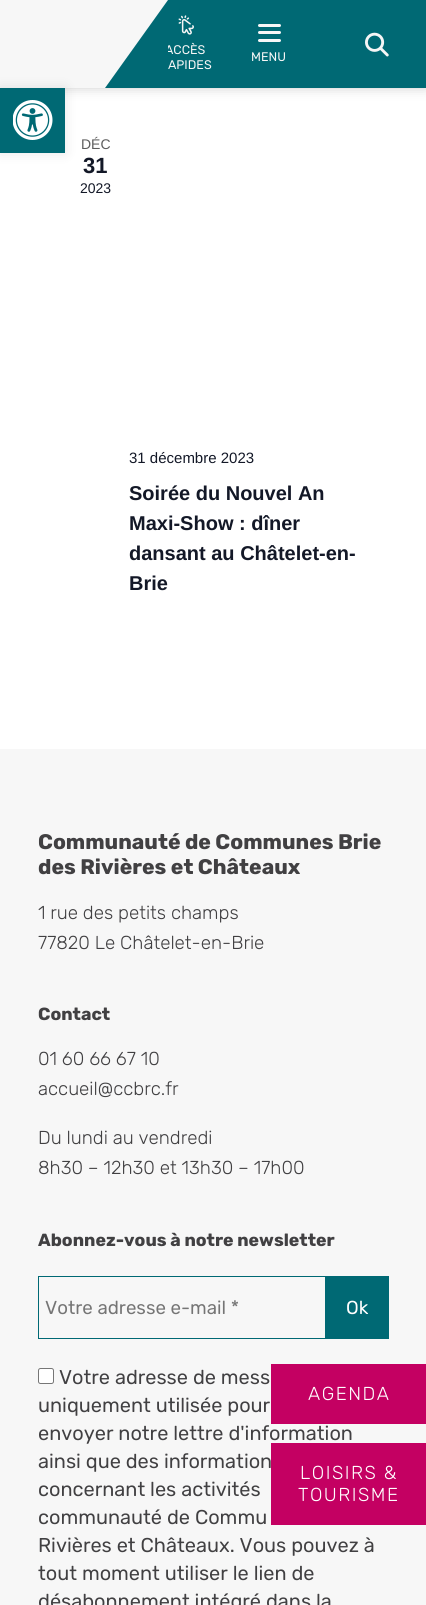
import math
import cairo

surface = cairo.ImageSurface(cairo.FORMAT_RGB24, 426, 1605)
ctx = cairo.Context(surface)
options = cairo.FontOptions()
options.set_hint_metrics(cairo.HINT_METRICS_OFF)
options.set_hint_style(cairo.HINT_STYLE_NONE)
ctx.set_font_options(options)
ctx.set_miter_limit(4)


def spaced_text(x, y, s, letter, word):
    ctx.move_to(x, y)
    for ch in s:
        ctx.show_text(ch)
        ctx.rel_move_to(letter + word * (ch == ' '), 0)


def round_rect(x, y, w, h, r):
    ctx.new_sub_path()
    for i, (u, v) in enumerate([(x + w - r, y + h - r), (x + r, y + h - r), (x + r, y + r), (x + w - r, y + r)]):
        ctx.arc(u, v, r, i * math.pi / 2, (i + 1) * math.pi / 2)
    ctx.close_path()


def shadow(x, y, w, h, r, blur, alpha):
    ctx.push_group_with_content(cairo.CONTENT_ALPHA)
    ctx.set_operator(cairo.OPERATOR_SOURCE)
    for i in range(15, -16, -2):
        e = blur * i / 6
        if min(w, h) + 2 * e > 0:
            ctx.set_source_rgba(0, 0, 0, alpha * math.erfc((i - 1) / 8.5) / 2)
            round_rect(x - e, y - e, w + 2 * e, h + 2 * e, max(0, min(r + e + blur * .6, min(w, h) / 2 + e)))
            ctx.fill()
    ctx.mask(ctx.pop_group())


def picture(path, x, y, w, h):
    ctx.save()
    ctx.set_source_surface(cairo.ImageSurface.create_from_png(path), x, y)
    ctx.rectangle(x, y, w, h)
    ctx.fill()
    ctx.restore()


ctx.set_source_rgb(1, 1, 1)
ctx.paint()
ctx.set_source_rgb(0, 0.412, 0.455)
ctx.rectangle(168, 0, 258, 88)
ctx.fill()
ctx.save()
ctx.set_fill_rule(cairo.FILL_RULE_EVEN_ODD)
ctx.new_path()
ctx.move_to(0, 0)
ctx.line_to(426, 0)
ctx.line_to(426, 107)
ctx.line_to(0, 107)
ctx.close_path()
ctx.move_to(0, 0)
ctx.line_to(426, 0)
ctx.line_to(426, 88)
ctx.line_to(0, 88)
ctx.close_path()
ctx.clip()
ctx.set_source_rgb(0.255, 0.251, 0.259)
shadow(0, 0, 426, 88, 0, 6, 0.25)
ctx.restore()
ctx.set_source_rgb(0.965, 0.965, 0.965)
ctx.rectangle(0, 0, 105, 88)
ctx.fill()
ctx.select_font_face("Rubik")
ctx.set_font_size(12.5)
ctx.move_to(165, 54)
ctx.show_text("ACCÈS")
ctx.set_source_rgb(0, 0.412, 0.455)
ctx.rectangle(105, 0, 63, 88)
ctx.fill()
ctx.set_source_rgb(0.965, 0.965, 0.965)
ctx.new_path()
ctx.move_to(105, 88)
ctx.line_to(105, 0)
ctx.line_to(168, 0)
ctx.close_path()
ctx.fill()
picture("img1.png", 178, 15, 16, 20)
ctx.move_to(168, 69)
ctx.show_text("APIDES")
round_rect(258, 31, 23, 3, 1.5)
ctx.fill()
round_rect(258, 24, 23, 3, 1.5)
ctx.fill()
round_rect(258, 39, 23, 3, 1.5)
ctx.fill()
ctx.move_to(251, 61)
ctx.show_text("MENU")
ctx.set_source_rgb(0, 0.412, 0.455)
ctx.rectangle(309, 87, 80, 1)
ctx.fill()
picture("img2.png", 365, 32, 24, 25)
ctx.set_source_rgb(0, 0, 0)
shadow(0, 88, 65, 65, 0, 6, 0.1)
ctx.set_source_rgb(0, 0.412, 0.455)
ctx.rectangle(0, 88, 65, 65)
ctx.fill()
picture("img3.png", 13, 100, 40, 40)
ctx.select_font_face("Liberation Sans")
ctx.set_font_size(14)
ctx.set_source_rgb(0.365, 0.365, 0.365)
ctx.move_to(81, 149)
ctx.show_text("DÉC")
ctx.select_font_face("Liberation Sans", cairo.FONT_SLANT_NORMAL, cairo.FONT_WEIGHT_BOLD)
ctx.set_font_size(22)
ctx.set_source_rgb(0.078, 0.094, 0.153)
ctx.move_to(83, 173)
ctx.show_text("31")
ctx.select_font_face("Liberation Sans")
ctx.set_font_size(14)
ctx.move_to(80, 193)
ctx.show_text("2023")
ctx.set_font_size(15)
ctx.move_to(129, 463)
ctx.show_text("31 décembre 2023")
ctx.select_font_face("Liberation Sans", cairo.FONT_SLANT_NORMAL, cairo.FONT_WEIGHT_BOLD)
ctx.set_font_size(20)
ctx.move_to(129, 500)
ctx.show_text("Soirée du Nouvel An")
ctx.move_to(129, 530)
ctx.show_text("Maxi-Show : dîner")
ctx.move_to(129, 560)
ctx.show_text("dansant au Châtelet-en-")
ctx.move_to(129, 590)
ctx.show_text("Brie")
ctx.set_source_rgb(0.965, 0.965, 0.965)
ctx.rectangle(0, 749, 426, 856)
ctx.fill()
ctx.set_source_rgb(0.769, 0, 0.384)
ctx.rectangle(271, 1364, 155, 60)
ctx.fill()
ctx.select_font_face("Rubik Light")
ctx.set_font_size(18.75)
ctx.set_source_rgb(1, 1, 1)
spaced_text(308, 1400, "AGENDA", 1.5, 0)
ctx.select_font_face("Rubik")
ctx.set_font_size(20)
ctx.set_source_rgb(0.255, 0.251, 0.259)
ctx.move_to(38, 1440)
ctx.show_text("envoyer notre lettre d'information")
ctx.set_source_rgb(0.769, 0, 0.384)
ctx.rectangle(271, 1443, 155, 82)
ctx.fill()
ctx.select_font_face("Rubik Light")
ctx.set_font_size(18.75)
ctx.set_source_rgb(1, 1, 1)
spaced_text(300, 1479, "LOISIRS &", 1.5, 0)
spaced_text(298, 1501, "TOURISME", 1.5, 0)
ctx.select_font_face("Rubik", cairo.FONT_SLANT_NORMAL, cairo.FONT_WEIGHT_BOLD)
ctx.set_font_size(21.1)
ctx.set_source_rgb(0.255, 0.251, 0.259)
ctx.move_to(38, 849)
ctx.show_text("Communauté de Communes Brie")
ctx.move_to(38, 874)
ctx.show_text("des Rivières et Châteaux")
ctx.select_font_face("Rubik Light")
ctx.set_font_size(18.75)
ctx.move_to(38, 919)
ctx.show_text("1 rue des petits champs")
ctx.move_to(38, 949)
ctx.show_text("77820 Le Châtelet-en-Brie")
ctx.select_font_face("Rubik", cairo.FONT_SLANT_NORMAL, cairo.FONT_WEIGHT_BOLD)
ctx.set_font_size(17.6)
ctx.move_to(38, 1020)
ctx.show_text("Contact")
ctx.select_font_face("Rubik Light")
ctx.set_font_size(18.75)
ctx.move_to(38, 1065)
ctx.show_text("01 60 66 67 10")
ctx.move_to(38, 1095)
ctx.show_text("accueil@ccbrc.fr")
ctx.move_to(38, 1144)
ctx.show_text("Du lundi au vendredi")
ctx.move_to(38, 1174)
ctx.show_text("8h30 – 12h30 et 13h30 – 17h00")
ctx.select_font_face("Rubik", cairo.FONT_SLANT_NORMAL, cairo.FONT_WEIGHT_BOLD)
ctx.set_font_size(17.6)
ctx.move_to(38, 1246)
ctx.show_text("Abonnez-vous à notre newsletter")
ctx.rectangle(38.5, 1276.5, 287, 62)
ctx.set_source_rgb(0, 0.412, 0.455)
ctx.set_line_width(1)
ctx.stroke()
ctx.select_font_face("Rubik")
ctx.set_font_size(18.75)
ctx.set_source_rgb(0.459, 0.459, 0.459)
ctx.move_to(45, 1314)
ctx.show_text("Votre adresse e-mail *")
ctx.set_source_rgb(0, 0.412, 0.455)
ctx.rectangle(326, 1276, 63, 63)
ctx.fill()
ctx.set_source_rgb(1, 1, 1)
ctx.move_to(346, 1314)
ctx.show_text("Ok")
round_rect(38.5, 1368.5, 15, 15, 2)
ctx.fill_preserve()
ctx.set_source_rgb(0.463, 0.463, 0.463)
ctx.stroke()
ctx.set_font_size(20)
ctx.set_source_rgb(0.255, 0.251, 0.259)
ctx.move_to(59, 1384)
ctx.show_text("Votre adresse de mess")
ctx.move_to(38, 1412)
ctx.show_text("uniquement utilisée pour")
ctx.move_to(38, 1468)
ctx.show_text("ainsi que des information")
ctx.move_to(38, 1496)
ctx.show_text("concernant les activités")
ctx.move_to(38, 1524)
ctx.show_text("communauté de Commu")
ctx.move_to(38, 1552)
ctx.show_text("Rivières et Châteaux. Vous pouvez à")
ctx.move_to(38, 1580)
ctx.show_text("tout moment utiliser le lien de")
ctx.move_to(38, 1608)
ctx.show_text("désabonnement intégré dans la")
surface.write_to_png("page.png")
